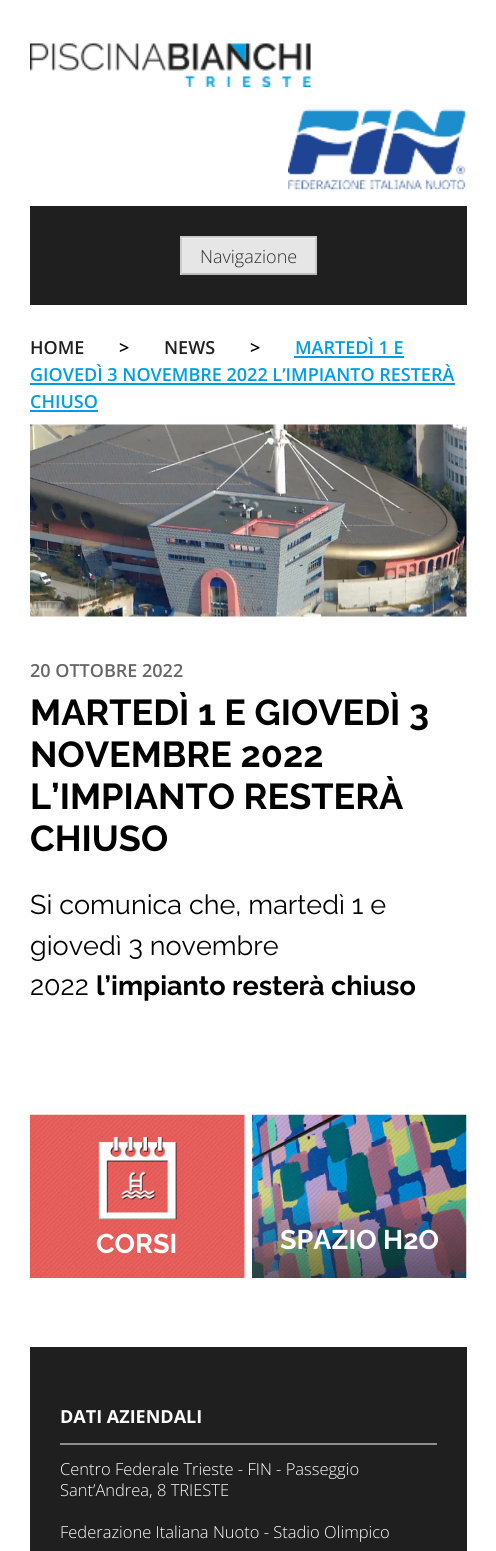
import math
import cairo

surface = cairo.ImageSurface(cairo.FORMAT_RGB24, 496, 1551)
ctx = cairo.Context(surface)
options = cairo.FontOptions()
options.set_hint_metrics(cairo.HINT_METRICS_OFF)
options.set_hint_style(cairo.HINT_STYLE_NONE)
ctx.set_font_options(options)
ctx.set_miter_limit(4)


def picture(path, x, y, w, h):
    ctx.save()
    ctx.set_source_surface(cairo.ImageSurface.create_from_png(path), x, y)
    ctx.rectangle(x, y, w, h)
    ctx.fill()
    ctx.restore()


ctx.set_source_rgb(1, 1, 1)
ctx.paint()
picture("img1.png", 30, 43, 281, 44)
picture("img2.png", 288, 109, 179, 81)
ctx.set_source_rgb(0.122, 0.122, 0.122)
ctx.rectangle(30, 206, 437, 99)
ctx.fill()
ctx.set_source_rgb(0.902, 0.902, 0.902)
ctx.rectangle(182, 239, 133, 34)
ctx.fill()
ctx.set_source_rgb(0.953, 0.953, 0.953)
ctx.rectangle(182, 238, 133, 1)
ctx.fill()
ctx.set_source_rgb(0.8, 0.8, 0.8)
ctx.rectangle(180, 236, 137, 2)
ctx.fill()
ctx.rectangle(315, 236, 2, 39)
ctx.fill()
ctx.set_source_rgb(0.733, 0.733, 0.733)
ctx.rectangle(180, 273, 137, 2)
ctx.fill()
ctx.set_source_rgb(0.8, 0.8, 0.8)
ctx.rectangle(180, 236, 2, 39)
ctx.fill()
ctx.select_font_face("Open Sans Light")
ctx.set_font_size(18)
ctx.set_source_rgb(0.18, 0.18, 0.18)
ctx.move_to(200, 263)
ctx.show_text("Navigazione")
ctx.select_font_face("Open Sans SemiBold")
ctx.set_source_rgb(0.122, 0.122, 0.122)
ctx.move_to(30, 354)
ctx.show_text("HOME")
ctx.set_source_rgb(0, 0, 0)
ctx.move_to(119, 354)
ctx.show_text(">")
ctx.set_source_rgb(0.122, 0.122, 0.122)
ctx.move_to(164, 354)
ctx.show_text("NEWS")
ctx.set_source_rgb(0, 0, 0)
ctx.move_to(250, 354)
ctx.show_text(">")
ctx.set_source_rgb(0, 0.616, 0.882)
ctx.move_to(295, 354)
ctx.show_text("MARTEDÌ 1 E")
ctx.rectangle(294, 356, 110, 2)
ctx.fill()
ctx.move_to(30, 381)
ctx.show_text("GIOVEDÌ 3 NOVEMBRE 2022 L’IMPIANTO RESTERÀ")
ctx.rectangle(30, 383, 425, 2)
ctx.fill()
ctx.move_to(30, 408)
ctx.show_text("CHIUSO")
ctx.rectangle(30, 410, 68, 2)
ctx.fill()
picture("img3.png", 30, 424, 437, 193)
ctx.set_source_rgb(0.4, 0.4, 0.4)
ctx.move_to(30, 677)
ctx.show_text("20 OTTOBRE 2022")
ctx.select_font_face("Raleway", cairo.FONT_SLANT_NORMAL, cairo.FONT_WEIGHT_BOLD)
ctx.set_font_size(36)
ctx.set_source_rgb(0, 0, 0)
ctx.move_to(30, 725)
ctx.show_text("MARTEDÌ 1 E GIOVEDÌ 3")
ctx.move_to(30, 767)
ctx.show_text("NOVEMBRE 2022")
ctx.move_to(30, 809)
ctx.show_text("L’IMPIANTO RESTERÀ")
ctx.move_to(30, 851)
ctx.show_text("CHIUSO")
ctx.select_font_face("Raleway")
ctx.set_font_size(27)
ctx.move_to(30, 914)
ctx.show_text("Si comunica che, martedì 1 e")
ctx.move_to(30, 955)
ctx.show_text("giovedì 3 novembre")
ctx.move_to(30, 995)
ctx.show_text("2022")
ctx.select_font_face("Raleway", cairo.FONT_SLANT_NORMAL, cairo.FONT_WEIGHT_BOLD)
ctx.move_to(96, 995)
ctx.show_text("l’impianto resterà chiuso")
picture("img4.png", 30, 1114, 215, 164)
ctx.set_source_rgb(1, 1, 1)
ctx.move_to(96, 1253)
ctx.show_text("CORSI")
picture("img5.png", 252, 1114, 215, 164)
ctx.move_to(280, 1249)
ctx.show_text("SPAZIO H2O")
ctx.set_source_rgb(0.122, 0.122, 0.122)
ctx.rectangle(30, 1347, 437, 204)
ctx.fill()
ctx.set_source_rgb(0.561, 0.561, 0.561)
ctx.rectangle(60, 1443, 377, 2)
ctx.fill()
ctx.select_font_face("Open Sans", cairo.FONT_SLANT_NORMAL, cairo.FONT_WEIGHT_BOLD)
ctx.set_font_size(18)
ctx.set_source_rgb(1, 1, 1)
ctx.move_to(60, 1423)
ctx.show_text("DATI AZIENDALI")
ctx.select_font_face("Open Sans Light")
ctx.set_font_size(16.5)
ctx.move_to(60, 1475)
ctx.show_text("Centro Federale Trieste - FIN - Passeggio")
ctx.move_to(60, 1496)
ctx.show_text("Sant’Andrea, 8 TRIESTE")
ctx.move_to(60, 1538)
ctx.show_text("Federazione Italiana Nuoto - Stadio Olimpico")
surface.write_to_png("page.png")
